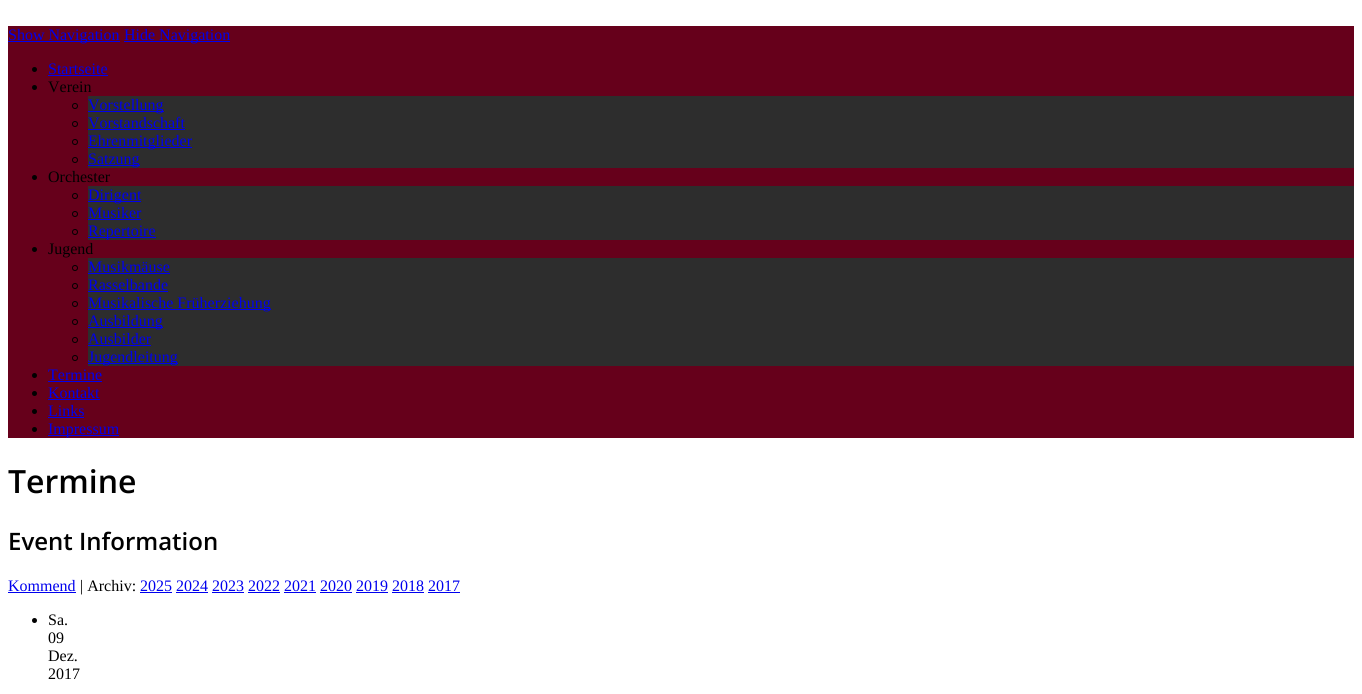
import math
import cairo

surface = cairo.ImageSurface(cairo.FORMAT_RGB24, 1362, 694)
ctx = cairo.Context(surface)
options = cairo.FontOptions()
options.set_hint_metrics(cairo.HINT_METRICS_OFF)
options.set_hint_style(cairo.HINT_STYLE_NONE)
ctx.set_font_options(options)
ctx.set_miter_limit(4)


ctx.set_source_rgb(1, 1, 1)
ctx.paint()
ctx.set_source_rgb(0.4, 0, 0.106)
ctx.rectangle(8, 26, 1346, 412)
ctx.fill()
ctx.set_source_rgb(0, 0, 0.933)
ctx.rectangle(8, 41, 112, 1)
ctx.fill()
ctx.select_font_face("Liberation Serif")
ctx.set_font_size(16)
ctx.move_to(8, 40)
ctx.show_text("Show Navigation")
ctx.rectangle(124, 41, 106, 1)
ctx.fill()
ctx.move_to(124, 40)
ctx.show_text("Hide Navigation")
ctx.set_source_rgb(0, 0, 0)
ctx.new_path()
ctx.arc(34.5, 69.5, 2.5, 0, 2 * math.pi)
ctx.fill()
ctx.set_source_rgb(0, 0, 0.933)
ctx.move_to(48, 74)
ctx.show_text("Startseite")
ctx.rectangle(48, 75, 60, 1)
ctx.fill()
ctx.set_source_rgb(0, 0, 0)
ctx.arc(34.5, 87.5, 2.5, 0, 2 * math.pi)
ctx.fill()
ctx.move_to(48, 92)
ctx.show_text("Verein")
ctx.set_source_rgb(0.176, 0.176, 0.176)
ctx.rectangle(88, 96, 1266, 72)
ctx.fill()
ctx.arc(75, 106, 2.5, 0, 2 * math.pi)
ctx.set_source_rgb(0, 0, 0)
ctx.set_line_width(1)
ctx.stroke()
ctx.set_source_rgb(0, 0, 0.933)
ctx.rectangle(88, 111, 76, 1)
ctx.fill()
ctx.move_to(88, 110)
ctx.show_text("Vorstellung")
ctx.new_path()
ctx.arc(75, 124, 2.5, 0, 2 * math.pi)
ctx.set_source_rgb(0, 0, 0)
ctx.stroke()
ctx.set_source_rgb(0, 0, 0.933)
ctx.move_to(88, 128)
ctx.show_text("Vorstandschaft")
ctx.rectangle(88, 129, 97, 1)
ctx.fill()
ctx.arc(75, 142, 2.5, 0, 2 * math.pi)
ctx.set_source_rgb(0, 0, 0)
ctx.stroke()
ctx.set_source_rgb(0, 0, 0.933)
ctx.rectangle(88, 147, 104, 1)
ctx.fill()
ctx.move_to(88, 146)
ctx.show_text("Ehrenmitglieder")
ctx.new_path()
ctx.arc(75, 160, 2.5, 0, 2 * math.pi)
ctx.set_source_rgb(0, 0, 0)
ctx.stroke()
ctx.set_source_rgb(0, 0, 0.933)
ctx.rectangle(88, 165, 52, 1)
ctx.fill()
ctx.move_to(88, 164)
ctx.show_text("Satzung")
ctx.set_source_rgb(0, 0, 0)
ctx.new_path()
ctx.arc(34.5, 177.5, 2.5, 0, 2 * math.pi)
ctx.fill()
ctx.move_to(48, 182)
ctx.show_text("Orchester")
ctx.set_source_rgb(0.176, 0.176, 0.176)
ctx.rectangle(88, 186, 1266, 54)
ctx.fill()
ctx.arc(75, 196, 2.5, 0, 2 * math.pi)
ctx.set_source_rgb(0, 0, 0)
ctx.stroke()
ctx.set_source_rgb(0, 0, 0.933)
ctx.rectangle(88, 201, 53, 1)
ctx.fill()
ctx.move_to(88, 200)
ctx.show_text("Dirigent")
ctx.new_path()
ctx.arc(75, 214, 2.5, 0, 2 * math.pi)
ctx.set_source_rgb(0, 0, 0)
ctx.stroke()
ctx.set_source_rgb(0, 0, 0.933)
ctx.move_to(88, 218)
ctx.show_text("Musiker")
ctx.rectangle(88, 219, 53, 1)
ctx.fill()
ctx.arc(75, 232, 2.5, 0, 2 * math.pi)
ctx.set_source_rgb(0, 0, 0)
ctx.stroke()
ctx.set_source_rgb(0, 0, 0.933)
ctx.rectangle(88, 237, 68, 1)
ctx.fill()
ctx.move_to(88, 236)
ctx.show_text("Repertoire")
ctx.set_source_rgb(0, 0, 0)
ctx.new_path()
ctx.arc(34.5, 249.5, 2.5, 0, 2 * math.pi)
ctx.fill()
ctx.move_to(48, 254)
ctx.show_text("Jugend")
ctx.set_source_rgb(0.176, 0.176, 0.176)
ctx.rectangle(88, 258, 1266, 108)
ctx.fill()
ctx.arc(75, 268, 2.5, 0, 2 * math.pi)
ctx.set_source_rgb(0, 0, 0)
ctx.stroke()
ctx.set_source_rgb(0, 0, 0.933)
ctx.move_to(88, 272)
ctx.show_text("Musikmäuse")
ctx.rectangle(88, 273, 82, 1)
ctx.fill()
ctx.arc(75, 286, 2.5, 0, 2 * math.pi)
ctx.set_source_rgb(0, 0, 0)
ctx.stroke()
ctx.set_source_rgb(0, 0, 0.933)
ctx.move_to(88, 290)
ctx.show_text("Rasselbande")
ctx.rectangle(88, 291, 80, 1)
ctx.fill()
ctx.arc(75, 304, 2.5, 0, 2 * math.pi)
ctx.set_source_rgb(0, 0, 0)
ctx.stroke()
ctx.set_source_rgb(0, 0, 0.933)
ctx.rectangle(88, 309, 183, 1)
ctx.fill()
ctx.move_to(88, 308)
ctx.show_text("Musikalische Früherziehung")
ctx.new_path()
ctx.arc(75, 322, 2.5, 0, 2 * math.pi)
ctx.set_source_rgb(0, 0, 0)
ctx.stroke()
ctx.set_source_rgb(0, 0, 0.933)
ctx.rectangle(88, 327, 75, 1)
ctx.fill()
ctx.move_to(88, 326)
ctx.show_text("Ausbildung")
ctx.new_path()
ctx.arc(75, 340, 2.5, 0, 2 * math.pi)
ctx.set_source_rgb(0, 0, 0)
ctx.stroke()
ctx.set_source_rgb(0, 0, 0.933)
ctx.move_to(88, 344)
ctx.show_text("Ausbilder")
ctx.rectangle(88, 345, 63, 1)
ctx.fill()
ctx.arc(75, 358, 2.5, 0, 2 * math.pi)
ctx.set_source_rgb(0, 0, 0)
ctx.stroke()
ctx.set_source_rgb(0, 0, 0.933)
ctx.rectangle(88, 363, 90, 1)
ctx.fill()
ctx.move_to(88, 362)
ctx.show_text("Jugendleitung")
ctx.set_source_rgb(0, 0, 0)
ctx.new_path()
ctx.arc(34.5, 375.5, 2.5, 0, 2 * math.pi)
ctx.fill()
ctx.set_source_rgb(0, 0, 0.933)
ctx.move_to(48, 380)
ctx.show_text("Termine")
ctx.rectangle(48, 381, 54, 1)
ctx.fill()
ctx.set_source_rgb(0, 0, 0)
ctx.arc(34.5, 393.5, 2.5, 0, 2 * math.pi)
ctx.fill()
ctx.set_source_rgb(0, 0, 0.933)
ctx.move_to(48, 398)
ctx.show_text("Kontakt")
ctx.rectangle(48, 399, 52, 1)
ctx.fill()
ctx.set_source_rgb(0, 0, 0)
ctx.arc(34.5, 411.5, 2.5, 0, 2 * math.pi)
ctx.fill()
ctx.set_source_rgb(0, 0, 0.933)
ctx.move_to(48, 416)
ctx.show_text("Links")
ctx.rectangle(48, 417, 36, 1)
ctx.fill()
ctx.set_source_rgb(0, 0, 0)
ctx.arc(34.5, 429.5, 2.5, 0, 2 * math.pi)
ctx.fill()
ctx.set_source_rgb(0, 0, 0.933)
ctx.rectangle(48, 435, 71, 1)
ctx.fill()
ctx.move_to(48, 434)
ctx.show_text("Impressum")
ctx.select_font_face("Open Sans SemiBold")
ctx.set_font_size(32)
ctx.set_source_rgb(0, 0, 0)
ctx.move_to(8, 493)
ctx.show_text("Termine")
ctx.set_font_size(24)
ctx.move_to(8, 550)
ctx.show_text("Event Information")
ctx.select_font_face("Liberation Serif")
ctx.set_font_size(16)
ctx.set_source_rgb(0, 0, 0.933)
ctx.move_to(8, 591)
ctx.show_text("Kommend")
ctx.rectangle(8, 592, 68, 1)
ctx.fill()
ctx.set_source_rgb(0, 0, 0)
ctx.move_to(80, 591)
ctx.show_text("| Archiv:")
ctx.set_source_rgb(0, 0, 0.933)
ctx.move_to(140, 591)
ctx.show_text("2025 2024 2023 2022 2021 2020 2019 2018 2017")
ctx.rectangle(140, 592, 32, 1)
ctx.fill()
ctx.rectangle(176, 592, 32, 1)
ctx.fill()
ctx.rectangle(212, 592, 32, 1)
ctx.fill()
ctx.rectangle(248, 592, 32, 1)
ctx.fill()
ctx.rectangle(284, 592, 32, 1)
ctx.fill()
ctx.rectangle(320, 592, 32, 1)
ctx.fill()
ctx.rectangle(356, 592, 32, 1)
ctx.fill()
ctx.rectangle(392, 592, 32, 1)
ctx.fill()
ctx.rectangle(428, 592, 32, 1)
ctx.fill()
ctx.set_source_rgb(0, 0, 0)
ctx.arc(34.5, 620.5, 2.5, 0, 2 * math.pi)
ctx.fill()
ctx.move_to(48, 625)
ctx.show_text("Sa.")
ctx.move_to(48, 643)
ctx.show_text("09")
ctx.move_to(48, 661)
ctx.show_text("Dez.")
ctx.move_to(48, 679)
ctx.show_text("2017")
surface.write_to_png("page.png")
